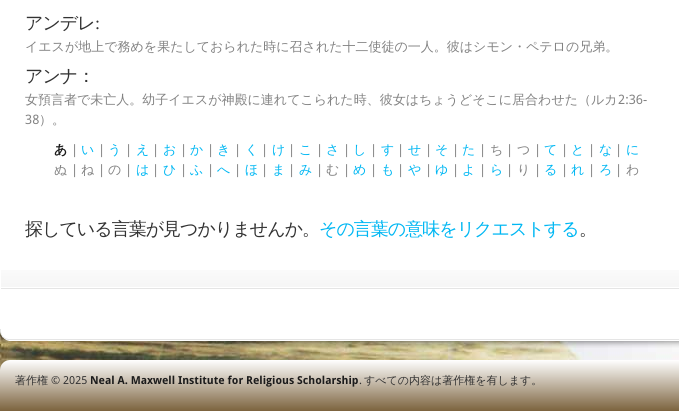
import math
import cairo

surface = cairo.ImageSurface(cairo.FORMAT_RGB24, 679, 411)
ctx = cairo.Context(surface)
options = cairo.FontOptions()
options.set_hint_metrics(cairo.HINT_METRICS_OFF)
options.set_hint_style(cairo.HINT_STYLE_NONE)
ctx.set_font_options(options)
ctx.set_miter_limit(4)


def spaced_text(x, y, s, letter, word):
    ctx.move_to(x, y)
    for ch in s:
        ctx.show_text(ch)
        ctx.rel_move_to(letter + word * (ch == ' '), 0)


def picture(path, x, y, w, h):
    ctx.save()
    ctx.set_source_surface(cairo.ImageSurface.create_from_png(path), x, y)
    ctx.rectangle(x, y, w, h)
    ctx.fill()
    ctx.restore()


ctx.set_source_rgb(1, 1, 1)
ctx.paint()
picture("img1.png", 0, 331, 679, 39)
picture("img2.png", 1, 270, 678, 17)
ctx.set_source_rgb(0.898, 0.898, 0.898)
ctx.rectangle(1, 288, 678, 1)
ctx.fill()
ctx.select_font_face("WenQuanYi Zen Hei Medium")
ctx.set_font_size(18)
ctx.set_source_rgb(0.2, 0.2, 0.2)
spaced_text(25, 29, "アンデレ", -1, 0)
ctx.select_font_face("Liberation Serif")
spaced_text(95, 29, ":", -1, 0)
ctx.select_font_face("WenQuanYi Zen Hei Medium")
ctx.set_font_size(13)
ctx.set_source_rgb(0.51, 0.51, 0.51)
ctx.move_to(25, 51)
ctx.show_text("イエスが地上で務めを果たしておられた時に召された十二使徒の一人。彼はシモン・ペテロの兄弟。")
ctx.set_font_size(18)
ctx.set_source_rgb(0.2, 0.2, 0.2)
spaced_text(25, 82, "アンナ：", -1, 0)
ctx.set_font_size(13)
ctx.set_source_rgb(0.51, 0.51, 0.51)
ctx.move_to(25, 104)
ctx.show_text("女預言者で未亡人。幼子イエスが神殿に連れてこられた時、彼女はちょうどそこに居合わせた（ルカ")
ctx.select_font_face("Droid Sans")
ctx.move_to(618, 104)
ctx.show_text("2:36-")
ctx.move_to(25, 124)
ctx.show_text("38")
ctx.select_font_face("WenQuanYi Zen Hei Medium")
ctx.move_to(39, 124)
ctx.show_text("）。")
ctx.select_font_face("WenQuanYi Zen Hei", cairo.FONT_SLANT_NORMAL, cairo.FONT_WEIGHT_BOLD)
ctx.set_source_rgb(0.11, 0.11, 0.11)
ctx.move_to(54, 154)
ctx.show_text("あ")
ctx.select_font_face("Droid Sans")
ctx.set_source_rgb(0.51, 0.51, 0.51)
ctx.move_to(71, 154)
ctx.show_text("|")
ctx.select_font_face("WenQuanYi Zen Hei Medium")
ctx.set_source_rgb(0, 0.718, 0.953)
ctx.move_to(81, 154)
ctx.show_text("い")
ctx.select_font_face("Droid Sans")
ctx.set_source_rgb(0.51, 0.51, 0.51)
ctx.move_to(98, 154)
ctx.show_text("|")
ctx.select_font_face("WenQuanYi Zen Hei Medium")
ctx.set_source_rgb(0, 0.718, 0.953)
ctx.move_to(108, 154)
ctx.show_text("う")
ctx.select_font_face("Droid Sans")
ctx.set_source_rgb(0.51, 0.51, 0.51)
ctx.move_to(125, 154)
ctx.show_text("|")
ctx.select_font_face("WenQuanYi Zen Hei Medium")
ctx.set_source_rgb(0, 0.718, 0.953)
ctx.move_to(136, 154)
ctx.show_text("え")
ctx.select_font_face("Droid Sans")
ctx.set_source_rgb(0.51, 0.51, 0.51)
ctx.move_to(152, 154)
ctx.show_text("|")
ctx.select_font_face("WenQuanYi Zen Hei Medium")
ctx.set_source_rgb(0, 0.718, 0.953)
ctx.move_to(163, 154)
ctx.show_text("お")
ctx.select_font_face("Droid Sans")
ctx.set_source_rgb(0.51, 0.51, 0.51)
ctx.move_to(180, 154)
ctx.show_text("|")
ctx.select_font_face("WenQuanYi Zen Hei Medium")
ctx.set_source_rgb(0, 0.718, 0.953)
ctx.move_to(190, 154)
ctx.show_text("か")
ctx.select_font_face("Droid Sans")
ctx.set_source_rgb(0.51, 0.51, 0.51)
ctx.move_to(207, 154)
ctx.show_text("|")
ctx.select_font_face("WenQuanYi Zen Hei Medium")
ctx.set_source_rgb(0, 0.718, 0.953)
ctx.move_to(217, 154)
ctx.show_text("き")
ctx.select_font_face("Droid Sans")
ctx.set_source_rgb(0.51, 0.51, 0.51)
ctx.move_to(234, 154)
ctx.show_text("|")
ctx.select_font_face("WenQuanYi Zen Hei Medium")
ctx.set_source_rgb(0, 0.718, 0.953)
ctx.move_to(245, 154)
ctx.show_text("く")
ctx.select_font_face("Droid Sans")
ctx.set_source_rgb(0.51, 0.51, 0.51)
ctx.move_to(261, 154)
ctx.show_text("|")
ctx.select_font_face("WenQuanYi Zen Hei Medium")
ctx.set_source_rgb(0, 0.718, 0.953)
ctx.move_to(272, 154)
ctx.show_text("け")
ctx.select_font_face("Droid Sans")
ctx.set_source_rgb(0.51, 0.51, 0.51)
ctx.move_to(288, 154)
ctx.show_text("|")
ctx.select_font_face("WenQuanYi Zen Hei Medium")
ctx.set_source_rgb(0, 0.718, 0.953)
ctx.move_to(299, 154)
ctx.show_text("こ")
ctx.select_font_face("Droid Sans")
ctx.set_source_rgb(0.51, 0.51, 0.51)
ctx.move_to(316, 154)
ctx.show_text("|")
ctx.select_font_face("WenQuanYi Zen Hei Medium")
ctx.set_source_rgb(0, 0.718, 0.953)
ctx.move_to(326, 154)
ctx.show_text("さ")
ctx.select_font_face("Droid Sans")
ctx.set_source_rgb(0.51, 0.51, 0.51)
ctx.move_to(343, 154)
ctx.show_text("|")
ctx.select_font_face("WenQuanYi Zen Hei Medium")
ctx.set_source_rgb(0, 0.718, 0.953)
ctx.move_to(353, 154)
ctx.show_text("し")
ctx.select_font_face("Droid Sans")
ctx.set_source_rgb(0.51, 0.51, 0.51)
ctx.move_to(370, 154)
ctx.show_text("|")
ctx.select_font_face("WenQuanYi Zen Hei Medium")
ctx.set_source_rgb(0, 0.718, 0.953)
ctx.move_to(381, 154)
ctx.show_text("す")
ctx.select_font_face("Droid Sans")
ctx.set_source_rgb(0.51, 0.51, 0.51)
ctx.move_to(397, 154)
ctx.show_text("|")
ctx.select_font_face("WenQuanYi Zen Hei Medium")
ctx.set_source_rgb(0, 0.718, 0.953)
ctx.move_to(408, 154)
ctx.show_text("せ")
ctx.select_font_face("Droid Sans")
ctx.set_source_rgb(0.51, 0.51, 0.51)
ctx.move_to(425, 154)
ctx.show_text("|")
ctx.select_font_face("WenQuanYi Zen Hei Medium")
ctx.set_source_rgb(0, 0.718, 0.953)
ctx.move_to(435, 154)
ctx.show_text("そ")
ctx.select_font_face("Droid Sans")
ctx.set_source_rgb(0.51, 0.51, 0.51)
ctx.move_to(452, 154)
ctx.show_text("|")
ctx.select_font_face("WenQuanYi Zen Hei Medium")
ctx.set_source_rgb(0, 0.718, 0.953)
ctx.move_to(462, 154)
ctx.show_text("た")
ctx.select_font_face("Droid Sans")
ctx.set_source_rgb(0.51, 0.51, 0.51)
ctx.move_to(479, 154)
ctx.show_text("|")
ctx.select_font_face("WenQuanYi Zen Hei Medium")
ctx.move_to(490, 154)
ctx.show_text("ち")
ctx.select_font_face("Droid Sans")
ctx.move_to(506, 154)
ctx.show_text("|")
ctx.select_font_face("WenQuanYi Zen Hei Medium")
ctx.move_to(517, 154)
ctx.show_text("つ")
ctx.select_font_face("Droid Sans")
ctx.move_to(534, 154)
ctx.show_text("|")
ctx.select_font_face("WenQuanYi Zen Hei Medium")
ctx.set_source_rgb(0, 0.718, 0.953)
ctx.move_to(544, 154)
ctx.show_text("て")
ctx.select_font_face("Droid Sans")
ctx.set_source_rgb(0.51, 0.51, 0.51)
ctx.move_to(561, 154)
ctx.show_text("|")
ctx.select_font_face("WenQuanYi Zen Hei Medium")
ctx.set_source_rgb(0, 0.718, 0.953)
ctx.move_to(571, 154)
ctx.show_text("と")
ctx.select_font_face("Droid Sans")
ctx.set_source_rgb(0.51, 0.51, 0.51)
ctx.move_to(588, 154)
ctx.show_text("|")
ctx.select_font_face("WenQuanYi Zen Hei Medium")
ctx.set_source_rgb(0, 0.718, 0.953)
ctx.move_to(599, 154)
ctx.show_text("な")
ctx.select_font_face("Droid Sans")
ctx.set_source_rgb(0.51, 0.51, 0.51)
ctx.move_to(615, 154)
ctx.show_text("|")
ctx.select_font_face("WenQuanYi Zen Hei Medium")
ctx.set_source_rgb(0, 0.718, 0.953)
ctx.move_to(626, 154)
ctx.show_text("に")
ctx.set_source_rgb(0.51, 0.51, 0.51)
ctx.move_to(54, 174)
ctx.show_text("ぬ")
ctx.select_font_face("Droid Sans")
ctx.move_to(71, 174)
ctx.show_text("|")
ctx.select_font_face("WenQuanYi Zen Hei Medium")
ctx.move_to(81, 174)
ctx.show_text("ね")
ctx.select_font_face("Droid Sans")
ctx.move_to(98, 174)
ctx.show_text("|")
ctx.select_font_face("WenQuanYi Zen Hei Medium")
ctx.move_to(108, 174)
ctx.show_text("の")
ctx.select_font_face("Droid Sans")
ctx.move_to(125, 174)
ctx.show_text("|")
ctx.select_font_face("WenQuanYi Zen Hei Medium")
ctx.set_source_rgb(0, 0.718, 0.953)
ctx.move_to(136, 174)
ctx.show_text("は")
ctx.select_font_face("Droid Sans")
ctx.set_source_rgb(0.51, 0.51, 0.51)
ctx.move_to(152, 174)
ctx.show_text("|")
ctx.select_font_face("WenQuanYi Zen Hei Medium")
ctx.set_source_rgb(0, 0.718, 0.953)
ctx.move_to(163, 174)
ctx.show_text("ひ")
ctx.select_font_face("Droid Sans")
ctx.set_source_rgb(0.51, 0.51, 0.51)
ctx.move_to(180, 174)
ctx.show_text("|")
ctx.select_font_face("WenQuanYi Zen Hei Medium")
ctx.set_source_rgb(0, 0.718, 0.953)
ctx.move_to(190, 174)
ctx.show_text("ふ")
ctx.select_font_face("Droid Sans")
ctx.set_source_rgb(0.51, 0.51, 0.51)
ctx.move_to(207, 174)
ctx.show_text("|")
ctx.select_font_face("WenQuanYi Zen Hei Medium")
ctx.set_source_rgb(0, 0.718, 0.953)
ctx.move_to(217, 174)
ctx.show_text("へ")
ctx.select_font_face("Droid Sans")
ctx.set_source_rgb(0.51, 0.51, 0.51)
ctx.move_to(234, 174)
ctx.show_text("|")
ctx.select_font_face("WenQuanYi Zen Hei Medium")
ctx.set_source_rgb(0, 0.718, 0.953)
ctx.move_to(245, 174)
ctx.show_text("ほ")
ctx.select_font_face("Droid Sans")
ctx.set_source_rgb(0.51, 0.51, 0.51)
ctx.move_to(261, 174)
ctx.show_text("|")
ctx.select_font_face("WenQuanYi Zen Hei Medium")
ctx.set_source_rgb(0, 0.718, 0.953)
ctx.move_to(272, 174)
ctx.show_text("ま")
ctx.select_font_face("Droid Sans")
ctx.set_source_rgb(0.51, 0.51, 0.51)
ctx.move_to(288, 174)
ctx.show_text("|")
ctx.select_font_face("WenQuanYi Zen Hei Medium")
ctx.set_source_rgb(0, 0.718, 0.953)
ctx.move_to(299, 174)
ctx.show_text("み")
ctx.select_font_face("Droid Sans")
ctx.set_source_rgb(0.51, 0.51, 0.51)
ctx.move_to(316, 174)
ctx.show_text("|")
ctx.select_font_face("WenQuanYi Zen Hei Medium")
ctx.move_to(326, 174)
ctx.show_text("む")
ctx.select_font_face("Droid Sans")
ctx.move_to(343, 174)
ctx.show_text("|")
ctx.select_font_face("WenQuanYi Zen Hei Medium")
ctx.set_source_rgb(0, 0.718, 0.953)
ctx.move_to(353, 174)
ctx.show_text("め")
ctx.select_font_face("Droid Sans")
ctx.set_source_rgb(0.51, 0.51, 0.51)
ctx.move_to(370, 174)
ctx.show_text("|")
ctx.select_font_face("WenQuanYi Zen Hei Medium")
ctx.set_source_rgb(0, 0.718, 0.953)
ctx.move_to(381, 174)
ctx.show_text("も")
ctx.select_font_face("Droid Sans")
ctx.set_source_rgb(0.51, 0.51, 0.51)
ctx.move_to(397, 174)
ctx.show_text("|")
ctx.select_font_face("WenQuanYi Zen Hei Medium")
ctx.set_source_rgb(0, 0.718, 0.953)
ctx.move_to(408, 174)
ctx.show_text("や")
ctx.select_font_face("Droid Sans")
ctx.set_source_rgb(0.51, 0.51, 0.51)
ctx.move_to(425, 174)
ctx.show_text("|")
ctx.select_font_face("WenQuanYi Zen Hei Medium")
ctx.set_source_rgb(0, 0.718, 0.953)
ctx.move_to(435, 174)
ctx.show_text("ゆ")
ctx.select_font_face("Droid Sans")
ctx.set_source_rgb(0.51, 0.51, 0.51)
ctx.move_to(452, 174)
ctx.show_text("|")
ctx.select_font_face("WenQuanYi Zen Hei Medium")
ctx.set_source_rgb(0, 0.718, 0.953)
ctx.move_to(462, 174)
ctx.show_text("よ")
ctx.select_font_face("Droid Sans")
ctx.set_source_rgb(0.51, 0.51, 0.51)
ctx.move_to(479, 174)
ctx.show_text("|")
ctx.select_font_face("WenQuanYi Zen Hei Medium")
ctx.set_source_rgb(0, 0.718, 0.953)
ctx.move_to(490, 174)
ctx.show_text("ら")
ctx.select_font_face("Droid Sans")
ctx.set_source_rgb(0.51, 0.51, 0.51)
ctx.move_to(506, 174)
ctx.show_text("|")
ctx.select_font_face("WenQuanYi Zen Hei Medium")
ctx.move_to(517, 174)
ctx.show_text("り")
ctx.select_font_face("Droid Sans")
ctx.move_to(534, 174)
ctx.show_text("|")
ctx.select_font_face("WenQuanYi Zen Hei Medium")
ctx.set_source_rgb(0, 0.718, 0.953)
ctx.move_to(544, 174)
ctx.show_text("る")
ctx.select_font_face("Droid Sans")
ctx.set_source_rgb(0.51, 0.51, 0.51)
ctx.move_to(561, 174)
ctx.show_text("|")
ctx.select_font_face("WenQuanYi Zen Hei Medium")
ctx.set_source_rgb(0, 0.718, 0.953)
ctx.move_to(571, 174)
ctx.show_text("れ")
ctx.select_font_face("Droid Sans")
ctx.set_source_rgb(0.51, 0.51, 0.51)
ctx.move_to(588, 174)
ctx.show_text("|")
ctx.select_font_face("WenQuanYi Zen Hei Medium")
ctx.set_source_rgb(0, 0.718, 0.953)
ctx.move_to(599, 174)
ctx.show_text("ろ")
ctx.select_font_face("Droid Sans")
ctx.set_source_rgb(0.51, 0.51, 0.51)
ctx.move_to(615, 174)
ctx.show_text("|")
ctx.select_font_face("WenQuanYi Zen Hei Medium")
ctx.move_to(626, 174)
ctx.show_text("わ")
ctx.set_font_size(18)
ctx.set_source_rgb(0.2, 0.2, 0.2)
spaced_text(25, 235, "探している言葉が見つかりませんか。", -1, 0)
ctx.set_source_rgb(0, 0.718, 0.953)
spaced_text(319, 235, "その言葉の意味をリクエストする", -1, 0)
ctx.set_source_rgb(0.2, 0.2, 0.2)
spaced_text(579, 235, "。", -1, 0)
picture("img3.png", 0, 329, 679, 19)
gradient = cairo.LinearGradient(480, 360, 480, 411)
gradient.add_color_stop_rgba(0, 1, 1, 1, 1)
gradient.add_color_stop_rgba(1, 0.486, 0.388, 0.243, 1)
ctx.set_source(gradient)
ctx.new_path()
ctx.move_to(10, 360)
ctx.line_to(679, 360)
ctx.curve_to(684.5, 360, 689, 364.5, 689, 370)
ctx.line_to(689, 411)
ctx.line_to(0, 411)
ctx.line_to(0, 370)
ctx.curve_to(0, 364.5, 4.5, 360, 10, 360)
ctx.close_path()
ctx.fill()
ctx.set_font_size(11)
ctx.set_source_rgb(0.2, 0.2, 0.2)
ctx.move_to(15, 384)
ctx.show_text("著作権")
ctx.select_font_face("Droid Sans")
ctx.move_to(51, 384)
ctx.show_text("© 2025")
ctx.select_font_face("Droid Sans", cairo.FONT_SLANT_NORMAL, cairo.FONT_WEIGHT_BOLD)
ctx.set_source_rgb(0.11, 0.11, 0.11)
ctx.move_to(90, 384)
ctx.show_text("Neal A. Maxwell Institute for Religious Scholarship")
ctx.select_font_face("Droid Sans")
ctx.set_source_rgb(0.2, 0.2, 0.2)
ctx.move_to(359, 384)
ctx.show_text(".")
ctx.select_font_face("WenQuanYi Zen Hei Medium")
ctx.move_to(364, 384)
ctx.show_text("すべての内容は著作権を有します。")
surface.write_to_png("page.png")
